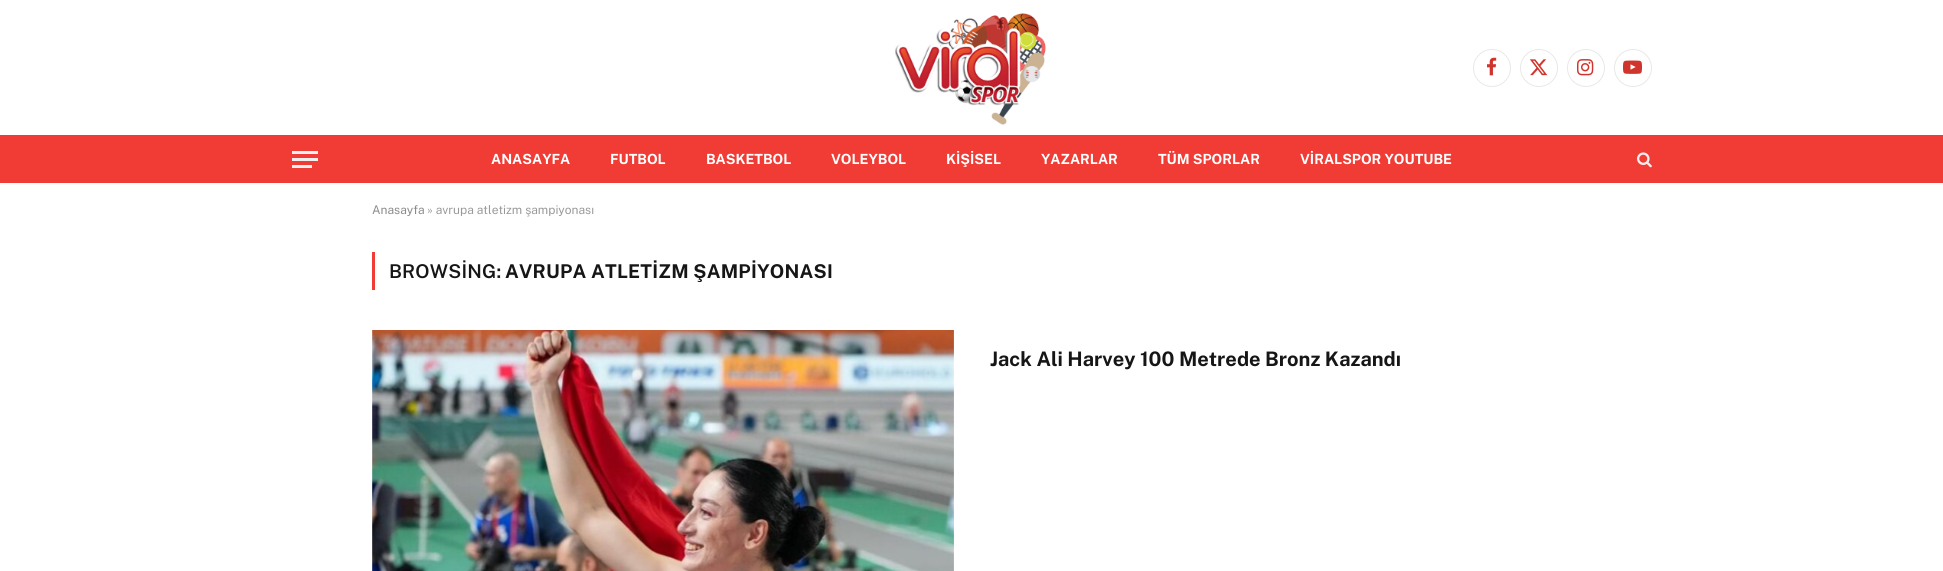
import math
import cairo

surface = cairo.ImageSurface(cairo.FORMAT_RGB24, 1943, 571)
ctx = cairo.Context(surface)
options = cairo.FontOptions()
options.set_hint_metrics(cairo.HINT_METRICS_OFF)
options.set_hint_style(cairo.HINT_STYLE_NONE)
ctx.set_font_options(options)
ctx.set_miter_limit(4)


def spaced_text(x, y, s, letter, word):
    ctx.move_to(x, y)
    for ch in s:
        ctx.show_text(ch)
        ctx.rel_move_to(letter + word * (ch == ' '), 0)


def picture(path, x, y, w, h):
    ctx.save()
    ctx.set_source_surface(cairo.ImageSurface.create_from_png(path), x, y)
    ctx.rectangle(x, y, w, h)
    ctx.fill()
    ctx.restore()


ctx.set_source_rgb(1, 1, 1)
ctx.paint()
picture("img1.png", 895, 13, 151, 112)
ctx.arc(1492, 68, 18.5, 0, 2 * math.pi)
ctx.set_source_rgb(0.91, 0.91, 0.91)
ctx.set_line_width(1)
ctx.stroke()
picture("img2.png", 1487, 57, 10, 19)
ctx.arc(1539, 68, 18.5, 0, 2 * math.pi)
ctx.stroke()
picture("img3.png", 1529, 59, 19, 17)
ctx.arc(1586, 68, 18.5, 0, 2 * math.pi)
ctx.stroke()
picture("img4.png", 1577, 59, 17, 17)
ctx.arc(1633, 68, 18.5, 0, 2 * math.pi)
ctx.stroke()
picture("img5.png", 1623, 60, 19, 14)
ctx.set_source_rgb(0.941, 0.235, 0.204)
ctx.rectangle(0, 135, 1943, 48)
ctx.fill()
ctx.set_source_rgb(0.941, 0.941, 0.941)
ctx.rectangle(292, 165, 20, 3)
ctx.fill()
ctx.rectangle(292, 151, 26, 3)
ctx.fill()
ctx.rectangle(292, 158, 26, 3)
ctx.fill()
ctx.select_font_face("Public Sans", cairo.FONT_SLANT_NORMAL, cairo.FONT_WEIGHT_BOLD)
ctx.set_font_size(14)
ctx.set_source_rgb(1, 1, 1)
ctx.move_to(491, 164)
ctx.show_text("ANASAYFA")
ctx.move_to(610, 164)
ctx.show_text("FUTBOL")
ctx.move_to(706, 164)
ctx.show_text("BASKETBOL")
ctx.move_to(831, 164)
ctx.show_text("VOLEYBOL")
ctx.move_to(946, 164)
ctx.show_text("KİŞİSEL")
ctx.move_to(1041, 164)
ctx.show_text("YAZARLAR")
ctx.move_to(1158, 164)
ctx.show_text("TÜM SPORLAR")
ctx.move_to(1300, 164)
ctx.show_text("VİRALSPOR YOUTUBE")
picture("img6.png", 1637, 152, 15, 16)
ctx.select_font_face("Public Sans")
ctx.set_font_size(12)
ctx.set_source_rgb(0.541, 0.541, 0.541)
ctx.move_to(372, 214)
ctx.show_text("Anasayfa")
ctx.set_source_rgb(0.6, 0.6, 0.6)
ctx.move_to(427, 214)
ctx.show_text("» avrupa atletizm şampiyonası")
ctx.set_source_rgb(0.941, 0.235, 0.204)
ctx.rectangle(372, 252, 3, 38)
ctx.fill()
ctx.select_font_face("Public Sans SemiBold")
ctx.set_font_size(19)
ctx.set_source_rgb(0.086, 0.086, 0.086)
spaced_text(389, 278, "BROWSİNG:", 0.2, 0)
ctx.select_font_face("Public Sans", cairo.FONT_SLANT_NORMAL, cairo.FONT_WEIGHT_BOLD)
spaced_text(505, 278, "AVRUPA ATLETİZM ŞAMPİYONASI", 0.2, 0)
picture("img7.png", 372, 330, 582, 241)
ctx.set_font_size(20)
ctx.move_to(990, 366)
ctx.show_text("Jack Ali Harvey 100 Metrede Bronz Kazandı")
surface.write_to_png("page.png")
